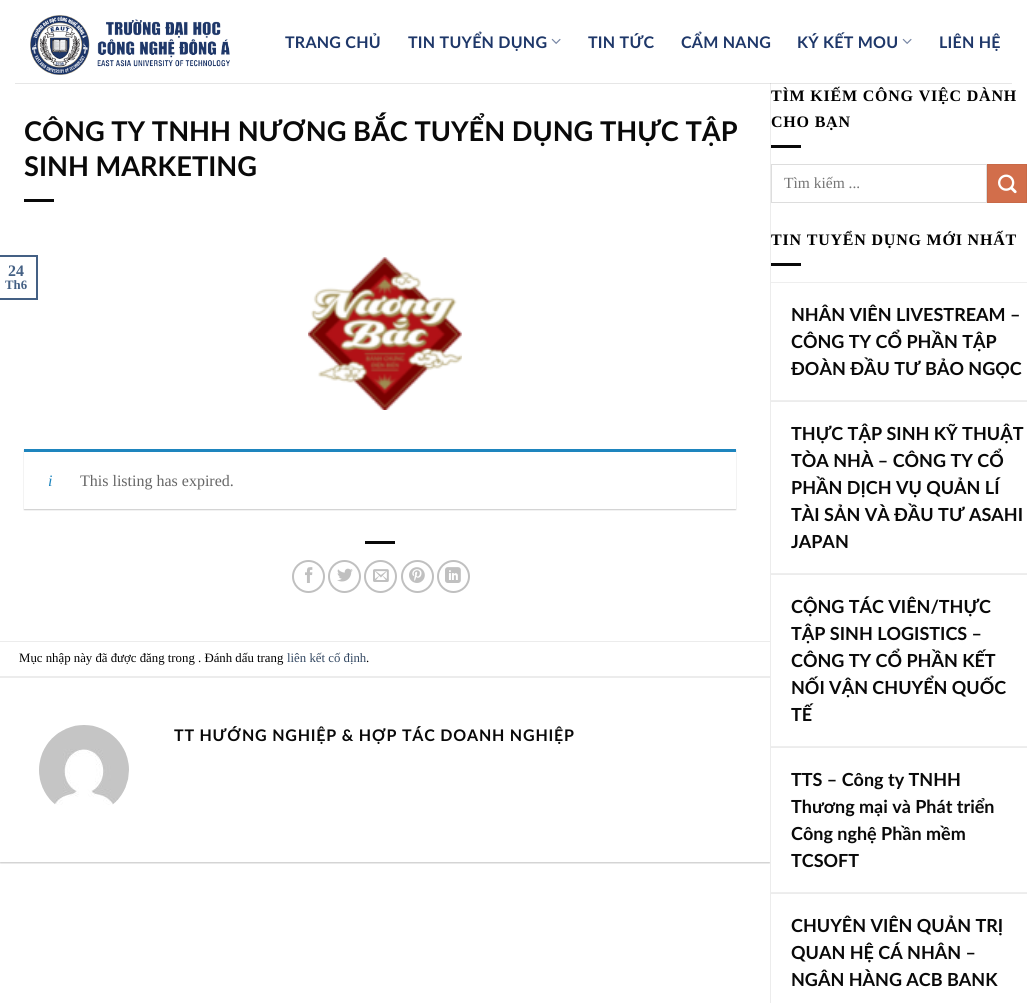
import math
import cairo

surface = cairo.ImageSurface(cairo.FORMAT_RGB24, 1027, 1003)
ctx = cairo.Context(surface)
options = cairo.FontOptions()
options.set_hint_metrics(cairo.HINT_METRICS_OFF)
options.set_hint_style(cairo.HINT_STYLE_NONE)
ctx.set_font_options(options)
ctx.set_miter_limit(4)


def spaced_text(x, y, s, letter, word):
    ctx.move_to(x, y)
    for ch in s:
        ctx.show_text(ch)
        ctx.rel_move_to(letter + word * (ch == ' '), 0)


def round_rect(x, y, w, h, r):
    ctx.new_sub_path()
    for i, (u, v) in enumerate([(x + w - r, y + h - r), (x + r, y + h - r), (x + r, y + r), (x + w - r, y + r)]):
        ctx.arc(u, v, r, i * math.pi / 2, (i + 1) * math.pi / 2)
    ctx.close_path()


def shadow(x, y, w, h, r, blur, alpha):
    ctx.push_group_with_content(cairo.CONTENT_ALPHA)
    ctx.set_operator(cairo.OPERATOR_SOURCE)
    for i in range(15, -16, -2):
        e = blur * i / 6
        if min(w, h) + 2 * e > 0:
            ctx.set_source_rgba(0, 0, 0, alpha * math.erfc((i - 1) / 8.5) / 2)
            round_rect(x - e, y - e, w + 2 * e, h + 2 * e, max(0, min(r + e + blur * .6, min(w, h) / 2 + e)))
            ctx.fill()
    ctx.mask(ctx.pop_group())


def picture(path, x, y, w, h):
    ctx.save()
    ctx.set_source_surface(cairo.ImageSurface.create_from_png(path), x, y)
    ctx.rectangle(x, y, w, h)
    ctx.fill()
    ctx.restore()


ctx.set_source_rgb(1, 1, 1)
ctx.paint()
picture("img1.png", 30, 15, 200, 60)
ctx.select_font_face("Lato", cairo.FONT_SLANT_NORMAL, cairo.FONT_WEIGHT_BOLD)
ctx.set_font_size(16)
ctx.set_source_rgb(0.118, 0.216, 0.412)
spaced_text(285, 48, "TRANG CHỦ", 0.25, 0)
spaced_text(408, 48, "TIN TUYỂN DỤNG", 0.25, 0)
picture("img2.png", 551, 38, 10, 6)
spaced_text(588, 48, "TIN TỨC", 0.25, 0)
spaced_text(681, 48, "CẨM NANG", 0.25, 0)
spaced_text(797, 48, "KÝ KẾT MOU", 0.25, 0)
picture("img2.png", 902, 38, 10, 6)
spaced_text(939, 48, "LIÊN HỆ", 0.25, 0)
ctx.save()
ctx.rectangle(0, 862, 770, 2)
ctx.clip()
ctx.set_source_rgb(0, 0, 0)
shadow(0, 84, 770, 779, 0, 1, 0.24)
ctx.restore()
ctx.set_source_rgb(0.925, 0.925, 0.925)
ctx.rectangle(770, 83, 1, 920)
ctx.fill()
ctx.set_source_rgba(0, 0, 0, 0.1)
ctx.rectangle(15, 83, 997, 1)
ctx.fill()
ctx.set_source_rgba(1, 1, 1, 0.9)
ctx.rectangle(1, 82, 768, 1)
ctx.fill()
ctx.set_font_size(27.2)
ctx.set_source_rgb(0.039, 0.039, 0.039)
ctx.move_to(24, 141)
ctx.show_text("CÔNG TY TNHH NƯƠNG BẮC TUYỂN DỤNG THỰC TẬP")
ctx.move_to(24, 176)
ctx.show_text("SINH MARKETING")
ctx.rectangle(24, 199, 30, 3)
ctx.fill()
ctx.rectangle(-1, 256, 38, 43)
ctx.set_source_rgb(0.267, 0.376, 0.518)
ctx.stroke()
ctx.select_font_face("Liberation Serif", cairo.FONT_SLANT_NORMAL, cairo.FONT_WEIGHT_BOLD)
ctx.set_font_size(16)
ctx.move_to(8, 276)
ctx.show_text("24")
ctx.set_font_size(12.8)
ctx.move_to(5, 289)
ctx.show_text("Th6")
picture("img3.png", 308, 257, 154, 153)
ctx.save()
ctx.set_fill_rule(cairo.FILL_RULE_EVEN_ODD)
ctx.new_path()
ctx.move_to(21, 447)
ctx.line_to(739, 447)
ctx.line_to(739, 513)
ctx.line_to(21, 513)
ctx.close_path()
ctx.move_to(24, 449)
ctx.line_to(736, 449)
ctx.line_to(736, 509)
ctx.line_to(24, 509)
ctx.close_path()
ctx.clip()
ctx.set_source_rgb(0, 0, 0)
shadow(24, 450, 712, 60, 0, 0.5, 0.2)
ctx.restore()
ctx.set_source_rgb(0.118, 0.522, 0.745)
ctx.rectangle(24, 449, 712, 3)
ctx.fill()
ctx.select_font_face("Liberation Serif", cairo.FONT_SLANT_ITALIC)
ctx.set_font_size(16)
ctx.move_to(48, 486)
ctx.show_text("i")
ctx.select_font_face("Liberation Serif")
ctx.set_source_rgb(0.4, 0.4, 0.4)
ctx.move_to(80, 486)
ctx.show_text("This listing has expired.")
ctx.set_source_rgb(0.039, 0.039, 0.039)
ctx.rectangle(365, 541, 30, 3)
ctx.fill()
ctx.arc(308.5, 576.5, 15.5, 0, 2 * math.pi)
ctx.set_source_rgb(0.753, 0.753, 0.753)
ctx.stroke()
picture("img4.png", 305, 567, 8, 16)
ctx.arc(344.5, 576.5, 15.5, 0, 2 * math.pi)
ctx.stroke()
picture("img5.png", 337, 568, 16, 14)
ctx.arc(380.5, 576.5, 15.5, 0, 2 * math.pi)
ctx.stroke()
picture("img6.png", 373, 569, 16, 13)
ctx.arc(417.5, 576.5, 15.5, 0, 2 * math.pi)
ctx.stroke()
picture("img7.png", 409, 567, 16, 16)
ctx.arc(453.5, 576.5, 15.5, 0, 2 * math.pi)
ctx.stroke()
picture("img8.png", 445, 567, 16, 16)
ctx.set_source_rgb(0.925, 0.925, 0.925)
ctx.rectangle(0, 641, 770, 1)
ctx.fill()
ctx.rectangle(0, 676, 770, 2)
ctx.fill()
ctx.set_font_size(12.8)
ctx.set_source_rgb(0, 0, 0)
ctx.move_to(19, 662)
ctx.show_text("Mục nhập này đã được đăng trong . Đánh dấu trang")
ctx.set_source_rgb(0.2, 0.282, 0.384)
ctx.move_to(287, 662)
ctx.show_text("liên kết cố định")
ctx.set_source_rgb(0, 0, 0)
ctx.move_to(366, 662)
ctx.show_text(".")
picture("img9.png", 39, 725, 90, 80)
ctx.select_font_face("Lato", cairo.FONT_SLANT_NORMAL, cairo.FONT_WEIGHT_BOLD)
ctx.set_font_size(16)
ctx.set_source_rgb(0.039, 0.039, 0.039)
spaced_text(174, 741, "TT HƯỚNG NGHIỆP & HỢP TÁC DOANH NGHIỆP", 0.8, 0)
ctx.select_font_face("Liberation Serif", cairo.FONT_SLANT_NORMAL, cairo.FONT_WEIGHT_BOLD)
ctx.set_source_rgb(0, 0, 0)
spaced_text(771, 101, "TÌM KIẾM CÔNG VIỆC DÀNH", 0.8, 0)
spaced_text(771, 127, "CHO BẠN", 0.8, 0)
ctx.set_source_rgb(0.039, 0.039, 0.039)
ctx.rectangle(771, 145, 30, 3)
ctx.fill()
ctx.rectangle(771.5, 164.5, 215, 38)
ctx.set_source_rgb(0.867, 0.867, 0.867)
ctx.set_line_width(1)
ctx.stroke()
ctx.select_font_face("Liberation Serif")
ctx.set_font_size(15.5)
ctx.set_source_rgb(0.459, 0.459, 0.459)
ctx.move_to(784, 188)
ctx.show_text("Tìm kiếm ...")
ctx.set_source_rgb(0.824, 0.431, 0.294)
ctx.rectangle(987.5, 164.5, 39, 38)
ctx.fill_preserve()
ctx.set_source_rgb(0.784, 0.412, 0.278)
ctx.stroke()
picture("img10.png", 998, 174, 19, 20)
ctx.select_font_face("Liberation Serif", cairo.FONT_SLANT_NORMAL, cairo.FONT_WEIGHT_BOLD)
ctx.set_font_size(16)
ctx.set_source_rgb(0, 0, 0)
spaced_text(771, 245, "TIN TUYỂN DỤNG MỚI NHẤT", 0.8, 0)
ctx.set_source_rgb(0.039, 0.039, 0.039)
ctx.rectangle(771, 263, 30, 3)
ctx.fill()
ctx.set_source_rgb(0.933, 0.933, 0.933)
ctx.rectangle(771, 282, 256, 1)
ctx.fill()
ctx.rectangle(771, 400, 256, 1)
ctx.fill()
ctx.select_font_face("Lato", cairo.FONT_SLANT_NORMAL, cairo.FONT_WEIGHT_BOLD)
ctx.set_font_size(18)
ctx.set_source_rgb(0.039, 0.039, 0.039)
ctx.move_to(791, 321)
ctx.show_text("NHÂN VIÊN LIVESTREAM –")
ctx.move_to(791, 348)
ctx.show_text("CÔNG TY CỔ PHẦN TẬP")
ctx.move_to(791, 375)
ctx.show_text("ĐOÀN ĐẦU TƯ BẢO NGỌC")
ctx.set_source_rgb(0.925, 0.925, 0.925)
ctx.rectangle(771, 401, 256, 1)
ctx.fill()
ctx.set_source_rgb(0.933, 0.933, 0.933)
ctx.rectangle(771, 573, 256, 1)
ctx.fill()
ctx.set_source_rgb(0.039, 0.039, 0.039)
ctx.move_to(791, 440)
ctx.show_text("THỰC TẬP SINH KỸ THUẬT")
ctx.move_to(791, 467)
ctx.show_text("TÒA NHÀ – CÔNG TY CỔ")
ctx.move_to(791, 494)
ctx.show_text("PHẦN DỊCH VỤ QUẢN LÍ")
ctx.move_to(791, 521)
ctx.show_text("TÀI SẢN VÀ ĐẦU TƯ ASAHI")
ctx.move_to(791, 548)
ctx.show_text("JAPAN")
ctx.set_source_rgb(0.925, 0.925, 0.925)
ctx.rectangle(771, 574, 256, 1)
ctx.fill()
ctx.set_source_rgb(0.933, 0.933, 0.933)
ctx.rectangle(771, 746, 256, 1)
ctx.fill()
ctx.set_source_rgb(0.039, 0.039, 0.039)
ctx.move_to(791, 613)
ctx.show_text("CỘNG TÁC VIÊN/THỰC")
ctx.move_to(791, 640)
ctx.show_text("TẬP SINH LOGISTICS –")
ctx.move_to(791, 667)
ctx.show_text("CÔNG TY CỔ PHẦN KẾT")
ctx.move_to(791, 694)
ctx.show_text("NỐI VẬN CHUYỂN QUỐC")
ctx.move_to(791, 721)
ctx.show_text("TẾ")
ctx.set_source_rgb(0.925, 0.925, 0.925)
ctx.rectangle(771, 747, 256, 1)
ctx.fill()
ctx.set_source_rgb(0.933, 0.933, 0.933)
ctx.rectangle(771, 892, 256, 1)
ctx.fill()
ctx.set_source_rgb(0.039, 0.039, 0.039)
ctx.move_to(791, 786)
ctx.show_text("TTS – Công ty TNHH")
ctx.move_to(791, 813)
ctx.show_text("Thương mại và Phát triển")
ctx.move_to(791, 840)
ctx.show_text("Công nghệ Phần mềm")
ctx.move_to(791, 867)
ctx.show_text("TCSOFT")
ctx.set_source_rgb(0.925, 0.925, 0.925)
ctx.rectangle(771, 893, 256, 1)
ctx.fill()
ctx.set_source_rgb(0.039, 0.039, 0.039)
ctx.move_to(791, 932)
ctx.show_text("CHUYÊN VIÊN QUẢN TRỊ")
ctx.move_to(791, 959)
ctx.show_text("QUAN HỆ CÁ NHÂN –")
ctx.move_to(791, 986)
ctx.show_text("NGÂN HÀNG ACB BANK")
surface.write_to_png("page.png")
